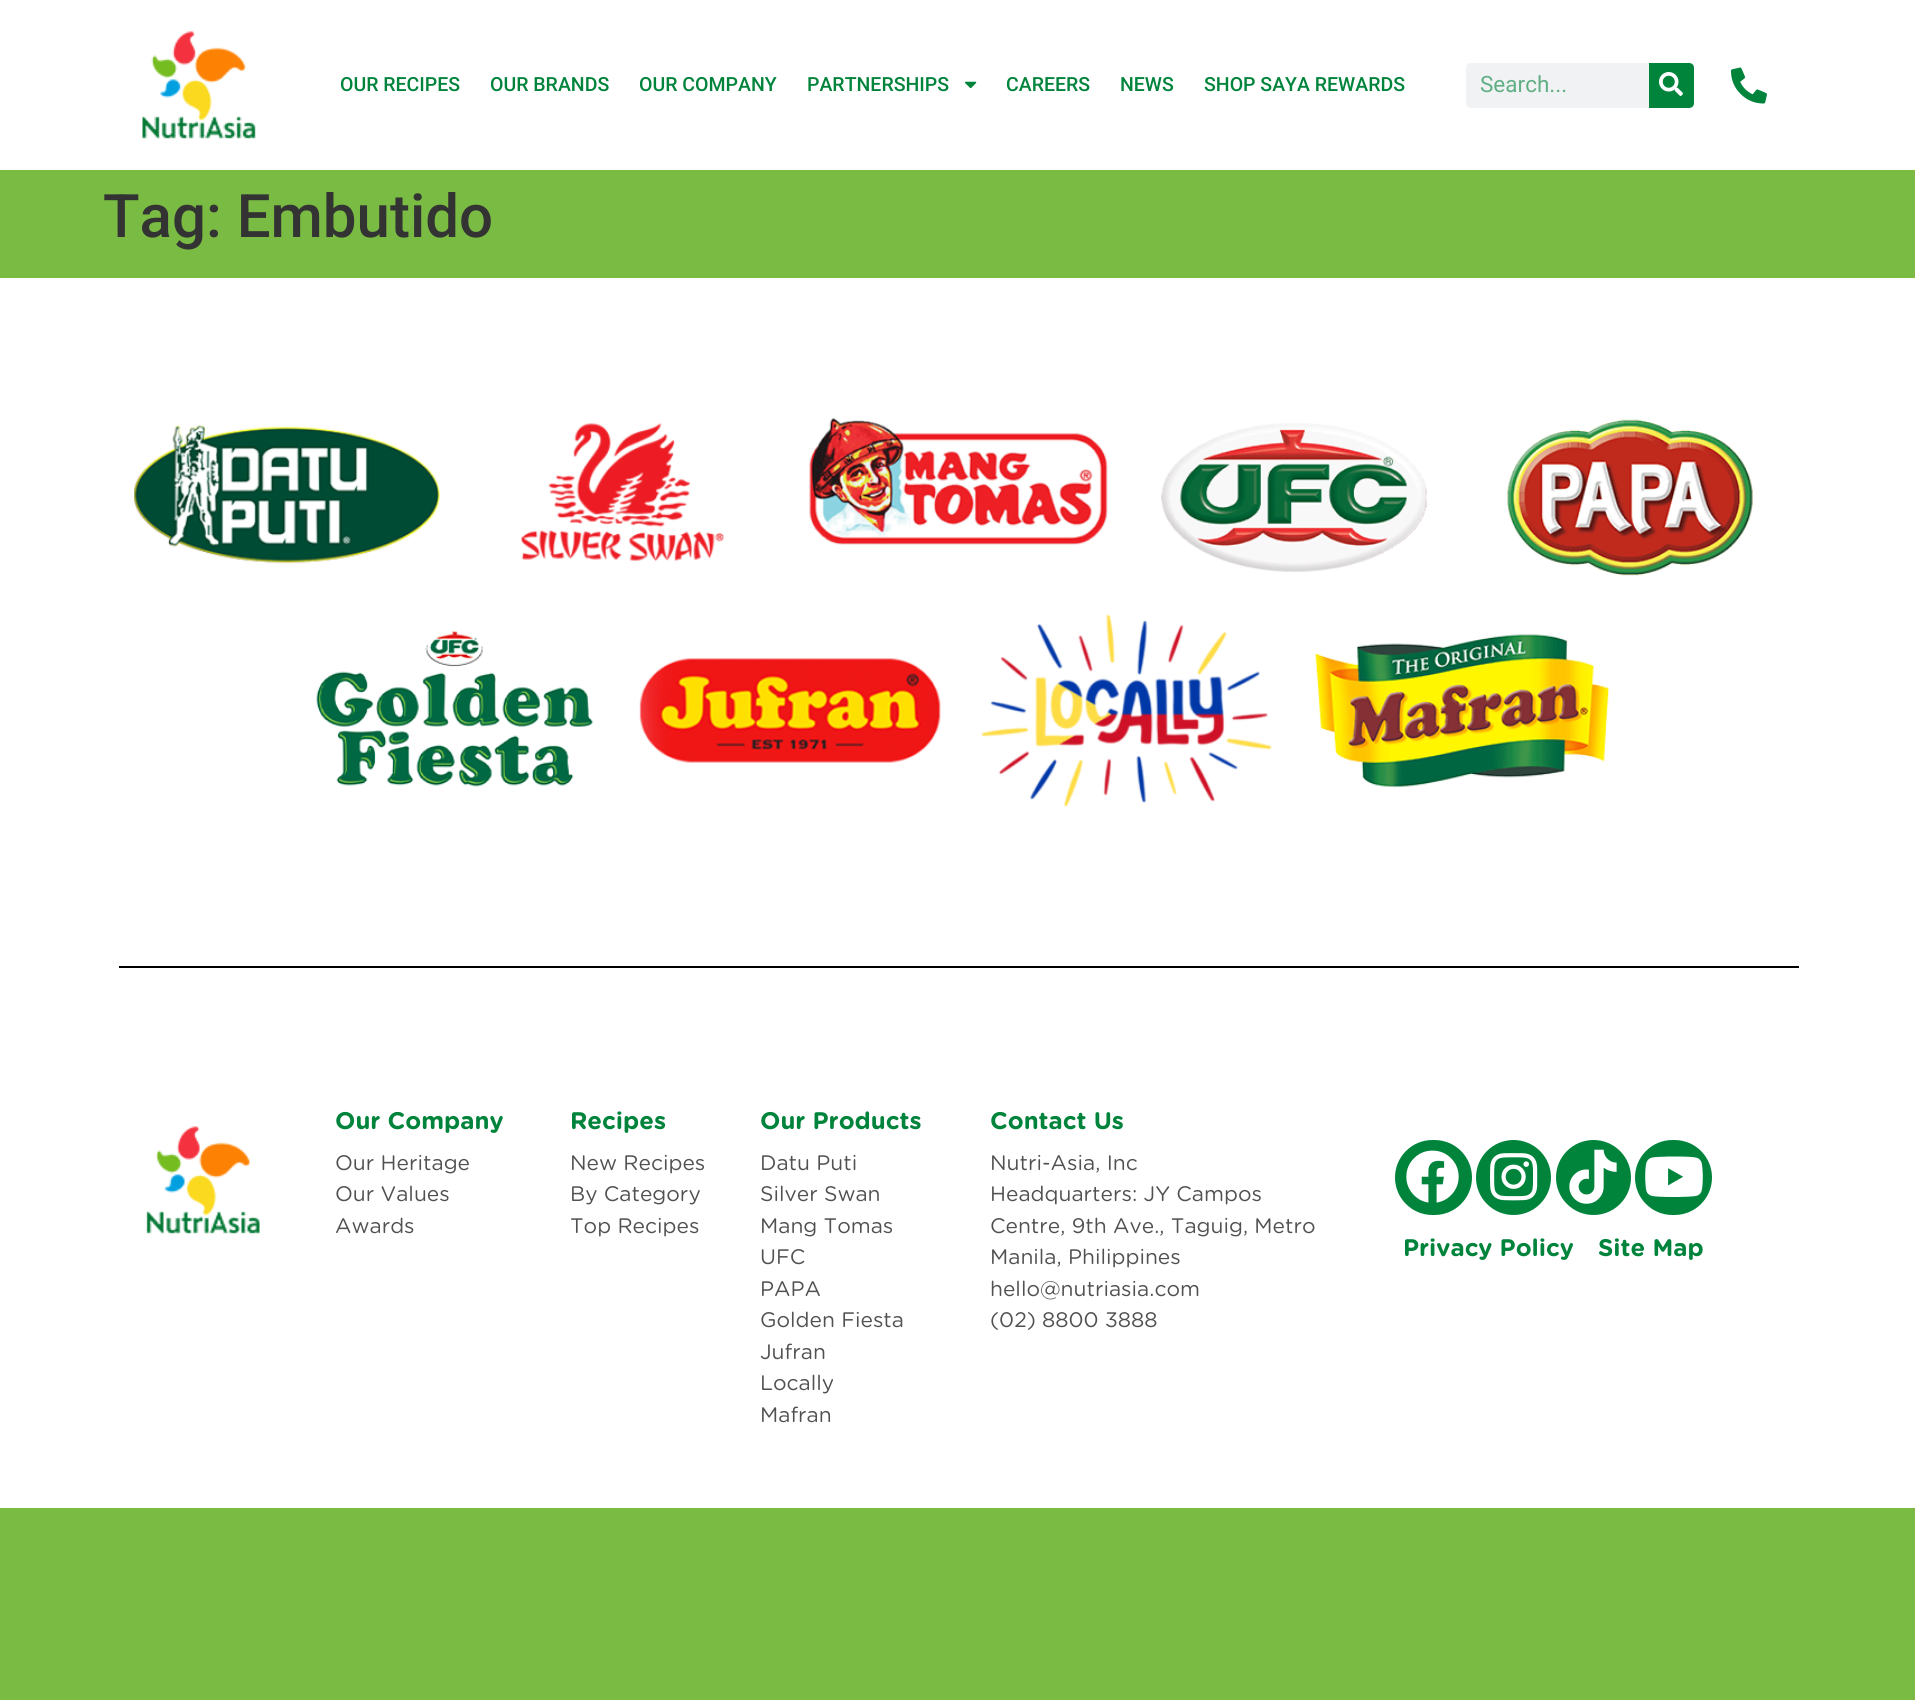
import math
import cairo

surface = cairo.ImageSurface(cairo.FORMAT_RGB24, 1915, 1700)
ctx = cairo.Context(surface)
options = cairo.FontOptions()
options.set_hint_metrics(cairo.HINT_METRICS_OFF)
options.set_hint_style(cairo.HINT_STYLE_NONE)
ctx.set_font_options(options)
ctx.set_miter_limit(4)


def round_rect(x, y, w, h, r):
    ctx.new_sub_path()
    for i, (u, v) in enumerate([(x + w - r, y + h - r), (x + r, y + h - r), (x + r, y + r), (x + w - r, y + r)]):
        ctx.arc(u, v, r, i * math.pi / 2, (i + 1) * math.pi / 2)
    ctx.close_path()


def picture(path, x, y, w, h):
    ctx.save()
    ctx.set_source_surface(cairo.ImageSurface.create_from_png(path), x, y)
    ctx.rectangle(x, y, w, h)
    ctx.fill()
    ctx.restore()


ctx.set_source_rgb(0.475, 0.733, 0.263)
ctx.paint()
ctx.set_source_rgb(1, 1, 1)
ctx.rectangle(0, 0, 1915, 170)
ctx.fill()
picture("img1.png", 142, 31, 114, 108)
ctx.select_font_face("Roboto Medium")
ctx.set_font_size(19.5)
ctx.set_source_rgb(0, 0.514, 0.231)
ctx.move_to(340, 91)
ctx.show_text("OUR RECIPES")
ctx.move_to(490, 91)
ctx.show_text("OUR BRANDS")
ctx.move_to(639, 91)
ctx.show_text("OUR COMPANY")
ctx.move_to(807, 91)
ctx.show_text("PARTNERSHIPS")
picture("img2.png", 965, 81, 12, 8)
ctx.move_to(1006, 91)
ctx.show_text("CAREERS")
ctx.move_to(1120, 91)
ctx.show_text("NEWS")
ctx.move_to(1204, 91)
ctx.show_text("SHOP SAYA REWARDS")
ctx.set_source_rgb(0.945, 0.949, 0.953)
round_rect(1466, 63, 228, 45, 5)
ctx.fill()
ctx.select_font_face("Roboto")
ctx.set_font_size(22.5)
ctx.set_source_rgb(0.376, 0.686, 0.522)
ctx.move_to(1480, 92)
ctx.show_text("Search...")
ctx.set_source_rgb(0, 0.514, 0.231)
ctx.new_path()
ctx.move_to(1649, 63)
ctx.line_to(1689, 63)
ctx.curve_to(1692, 63, 1694, 65, 1694, 68)
ctx.line_to(1694, 103)
ctx.curve_to(1694, 106, 1692, 108, 1689, 108)
ctx.line_to(1649, 108)
ctx.close_path()
ctx.fill()
picture("img3.png", 1659, 72, 24, 24)
picture("img4.png", 1731, 67, 36, 37)
ctx.select_font_face("Roboto Medium")
ctx.set_font_size(60)
ctx.set_source_rgb(0.2, 0.2, 0.2)
ctx.move_to(103, 237)
ctx.show_text("Tag: Embutido")
ctx.set_source_rgb(1, 1, 1)
ctx.rectangle(0, 278, 1915, 1230)
ctx.fill()
picture("img5.png", 134, 425, 307, 139)
picture("img6.png", 521, 423, 203, 138)
picture("img7.png", 809, 417, 299, 128)
picture("img8.png", 1161, 423, 266, 149)
picture("img9.png", 1507, 419, 246, 157)
picture("img10.png", 316, 631, 277, 156)
picture("img11.png", 639, 658, 302, 105)
picture("img12.png", 981, 614, 291, 193)
picture("img13.png", 1314, 634, 296, 154)
ctx.set_source_rgb(0, 0, 0)
ctx.rectangle(119, 966, 1680, 2)
ctx.fill()
picture("img14.png", 146, 1126, 114, 108)
ctx.select_font_face("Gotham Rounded", cairo.FONT_SLANT_NORMAL, cairo.FONT_WEIGHT_BOLD)
ctx.set_font_size(24)
ctx.set_source_rgb(0, 0.514, 0.231)
ctx.move_to(335, 1129)
ctx.show_text("Our Company")
ctx.select_font_face("Gotham Rounded")
ctx.set_font_size(21)
ctx.set_source_rgb(0.318, 0.318, 0.322)
ctx.move_to(335, 1170)
ctx.show_text("Our Heritage")
ctx.move_to(335, 1201)
ctx.show_text("Our Values")
ctx.move_to(335, 1233)
ctx.show_text("Awards")
ctx.select_font_face("Gotham Rounded", cairo.FONT_SLANT_NORMAL, cairo.FONT_WEIGHT_BOLD)
ctx.set_font_size(24)
ctx.set_source_rgb(0, 0.514, 0.231)
ctx.move_to(570, 1129)
ctx.show_text("Recipes")
ctx.select_font_face("Gotham Rounded")
ctx.set_font_size(21)
ctx.set_source_rgb(0.318, 0.318, 0.322)
ctx.move_to(570, 1170)
ctx.show_text("New Recipes")
ctx.move_to(570, 1201)
ctx.show_text("By Category")
ctx.move_to(570, 1233)
ctx.show_text("Top Recipes")
ctx.select_font_face("Gotham Rounded", cairo.FONT_SLANT_NORMAL, cairo.FONT_WEIGHT_BOLD)
ctx.set_font_size(24)
ctx.set_source_rgb(0, 0.514, 0.231)
ctx.move_to(760, 1129)
ctx.show_text("Our Products")
ctx.select_font_face("Gotham Rounded")
ctx.set_font_size(21)
ctx.set_source_rgb(0.318, 0.318, 0.322)
ctx.move_to(760, 1170)
ctx.show_text("Datu Puti")
ctx.move_to(760, 1201)
ctx.show_text("Silver Swan")
ctx.move_to(760, 1233)
ctx.show_text("Mang Tomas")
ctx.move_to(760, 1264)
ctx.show_text("UFC")
ctx.move_to(760, 1296)
ctx.show_text("PAPA")
ctx.move_to(760, 1327)
ctx.show_text("Golden Fiesta")
ctx.move_to(760, 1359)
ctx.show_text("Jufran")
ctx.move_to(760, 1390)
ctx.show_text("Locally")
ctx.move_to(760, 1422)
ctx.show_text("Mafran")
ctx.select_font_face("Gotham Rounded", cairo.FONT_SLANT_NORMAL, cairo.FONT_WEIGHT_BOLD)
ctx.set_font_size(24)
ctx.set_source_rgb(0, 0.514, 0.231)
ctx.move_to(990, 1129)
ctx.show_text("Contact Us")
ctx.select_font_face("Gotham Rounded")
ctx.set_font_size(21)
ctx.set_source_rgb(0.318, 0.318, 0.322)
ctx.move_to(990, 1170)
ctx.show_text("Nutri-Asia, Inc")
ctx.move_to(990, 1201)
ctx.show_text("Headquarters: JY Campos")
ctx.move_to(990, 1233)
ctx.show_text("Centre, 9th Ave., Taguig, Metro")
ctx.move_to(990, 1264)
ctx.show_text("Manila, Philippines")
ctx.move_to(990, 1296)
ctx.show_text("hello@nutriasia.com")
ctx.move_to(990, 1327)
ctx.show_text("(02) 8800 3888")
ctx.set_source_rgb(0, 0.514, 0.231)
round_rect(1395, 1140, 77, 75, 37.5)
ctx.fill()
picture("img15.png", 1406, 1150, 53, 53)
ctx.arc(1513.5, 1177.5, 37.5, 0, 2 * math.pi)
ctx.fill()
picture("img16.png", 1490, 1153, 48, 48)
ctx.arc(1593.5, 1177.5, 37.5, 0, 2 * math.pi)
ctx.fill()
picture("img17.png", 1569, 1149, 48, 55)
round_rect(1635, 1140, 77, 75, 37.5)
ctx.fill()
picture("img18.png", 1645, 1156, 58, 41)
ctx.select_font_face("Gotham Rounded", cairo.FONT_SLANT_NORMAL, cairo.FONT_WEIGHT_BOLD)
ctx.set_font_size(24)
ctx.move_to(1403, 1256)
ctx.show_text("Privacy Policy")
ctx.move_to(1598, 1256)
ctx.show_text("Site Map")
surface.write_to_png("page.png")
